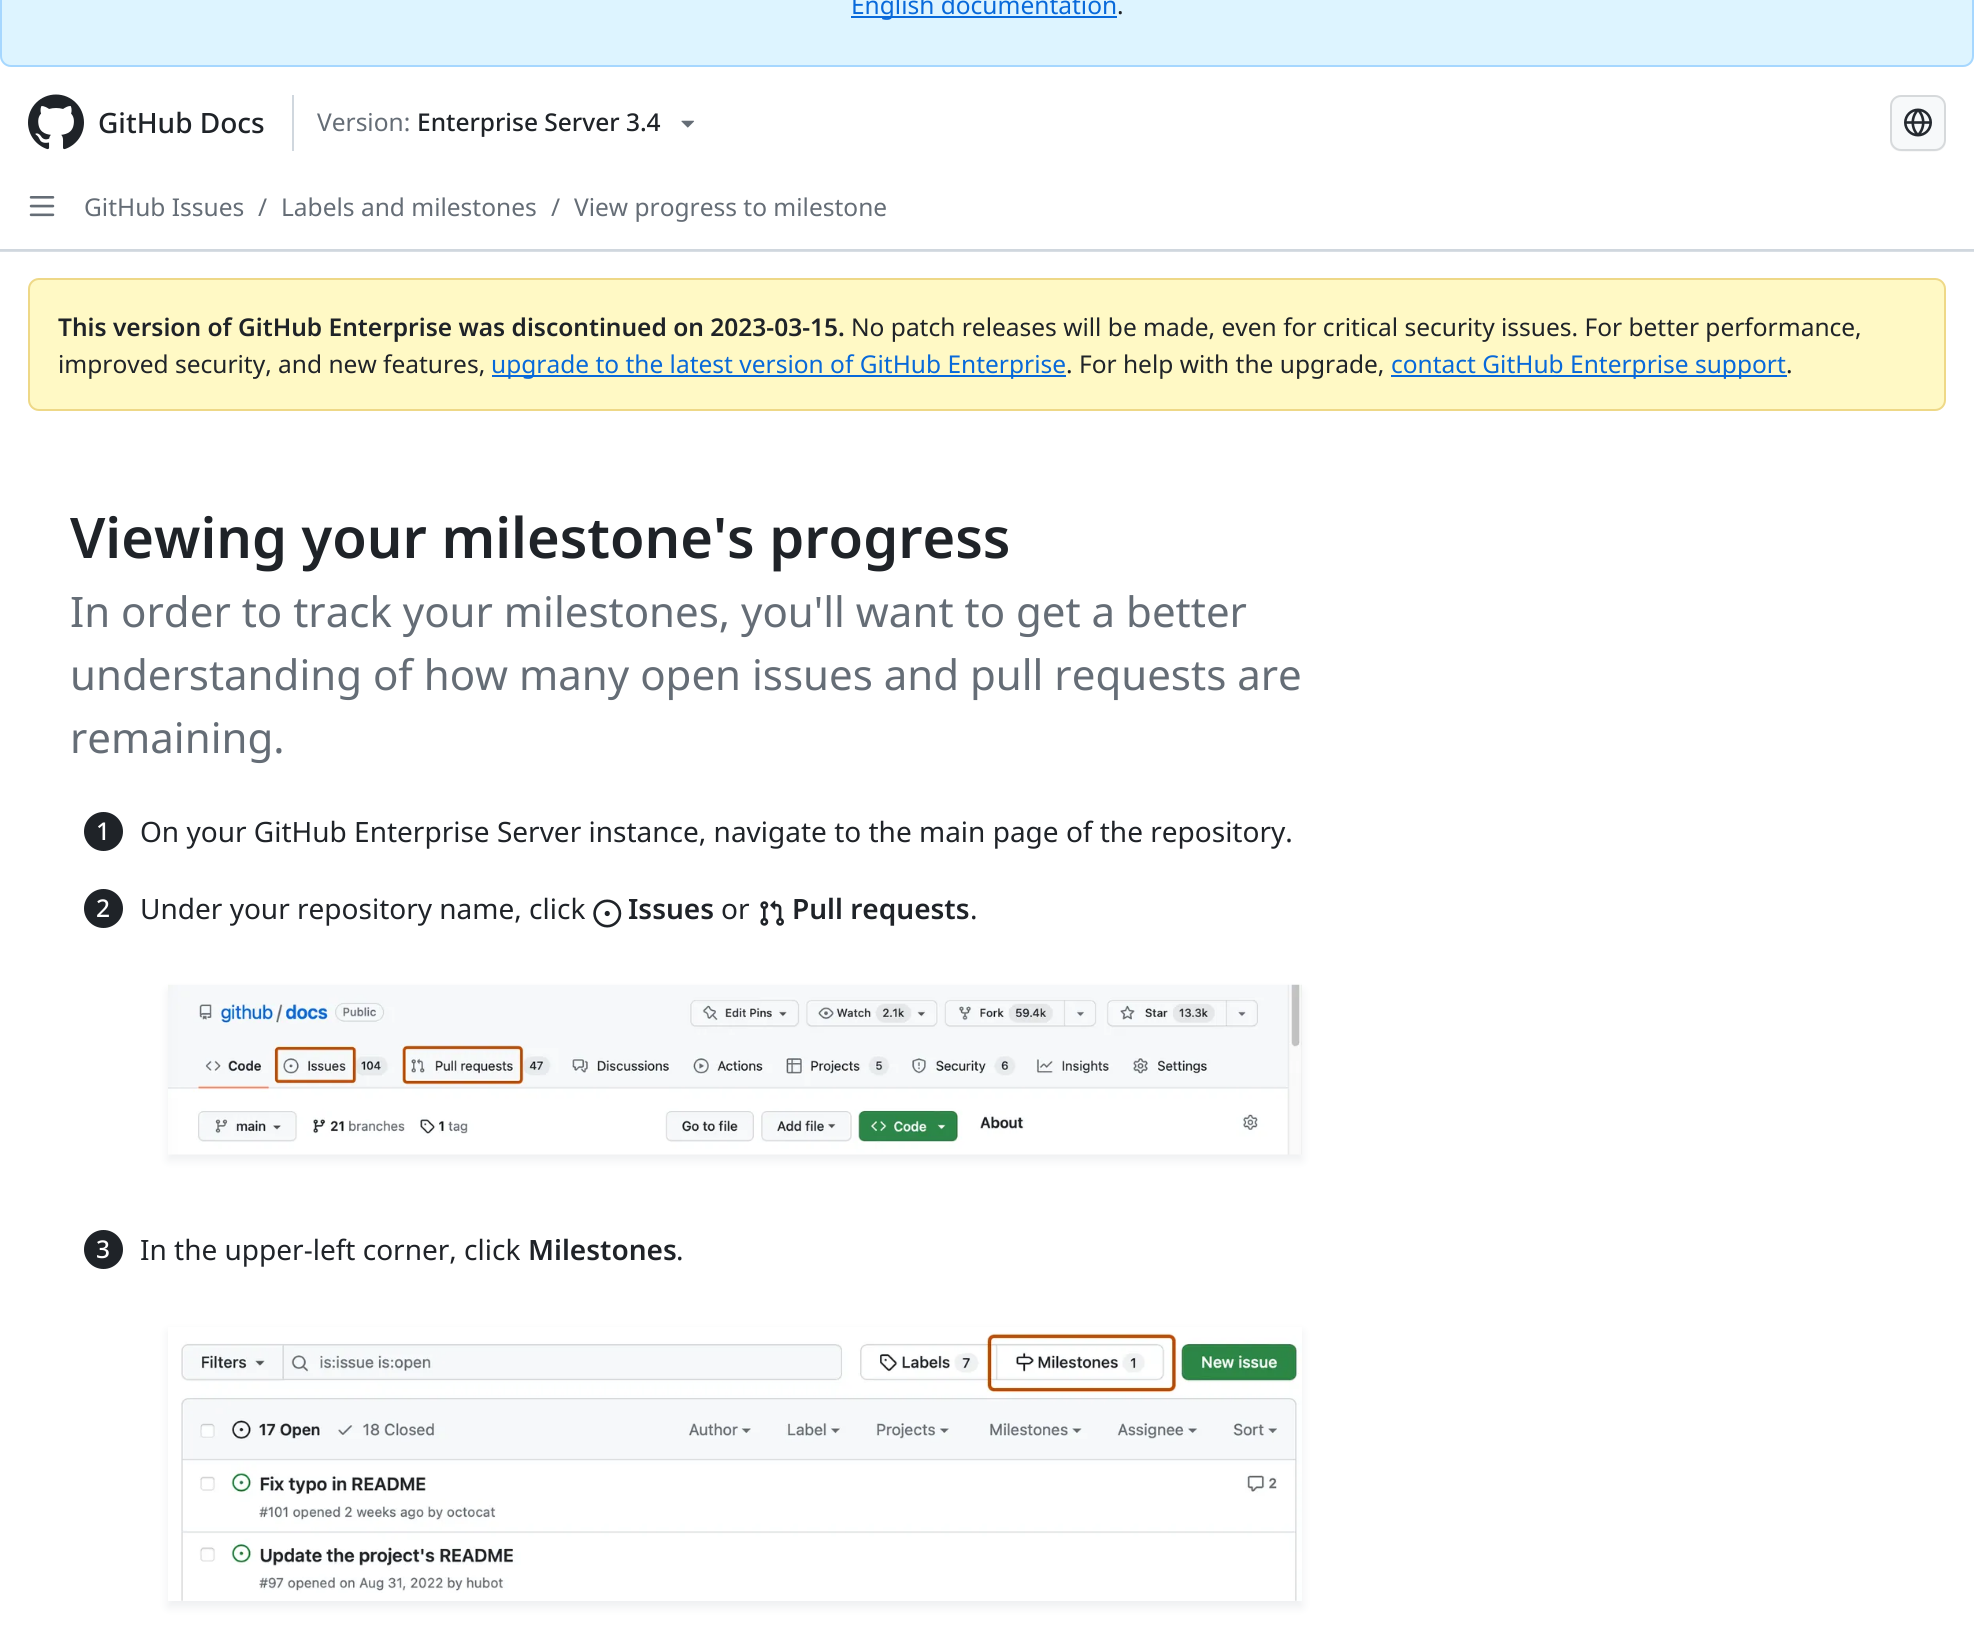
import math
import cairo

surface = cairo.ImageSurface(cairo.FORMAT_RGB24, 1974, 1626)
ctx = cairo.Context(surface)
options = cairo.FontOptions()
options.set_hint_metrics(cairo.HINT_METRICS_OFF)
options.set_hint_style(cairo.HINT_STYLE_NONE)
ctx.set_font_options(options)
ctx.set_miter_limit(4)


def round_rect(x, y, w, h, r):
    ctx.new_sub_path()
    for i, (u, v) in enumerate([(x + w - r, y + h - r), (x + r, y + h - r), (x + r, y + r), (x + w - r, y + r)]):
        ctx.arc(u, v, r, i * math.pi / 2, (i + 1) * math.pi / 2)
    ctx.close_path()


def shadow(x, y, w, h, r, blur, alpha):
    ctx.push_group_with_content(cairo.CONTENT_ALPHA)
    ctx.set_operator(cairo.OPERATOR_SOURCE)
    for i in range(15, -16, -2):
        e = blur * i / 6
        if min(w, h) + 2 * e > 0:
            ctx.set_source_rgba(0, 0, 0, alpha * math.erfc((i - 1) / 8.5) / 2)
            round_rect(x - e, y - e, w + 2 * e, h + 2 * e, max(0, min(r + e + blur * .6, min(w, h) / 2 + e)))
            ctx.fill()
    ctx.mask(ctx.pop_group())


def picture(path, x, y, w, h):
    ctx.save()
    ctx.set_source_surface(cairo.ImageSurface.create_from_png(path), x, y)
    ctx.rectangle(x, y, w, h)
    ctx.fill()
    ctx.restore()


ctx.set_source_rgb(1, 1, 1)
ctx.paint()
ctx.set_source_rgb(0.847, 0.871, 0.894)
ctx.rectangle(0, 251, 1974, 1)
ctx.fill()
ctx.set_source_rgb(0.867, 0.957, 1)
round_rect(0, -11, 1974, 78, 11)
ctx.fill()
round_rect(1, -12, 1972, 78, 10)
ctx.set_source_rgba(0.329, 0.682, 1, 0.4)
ctx.stroke()
ctx.set_source_rgb(0.035, 0.412, 0.855)
ctx.rectangle(851, 16, 266, 2)
ctx.fill()
ctx.select_font_face("Noto Sans")
ctx.set_font_size(24.5)
ctx.move_to(851, 14)
ctx.show_text("English documentation")
ctx.set_source_rgb(0.122, 0.137, 0.157)
ctx.move_to(1117, 14)
ctx.show_text(".")
ctx.set_source_rgb(0.816, 0.843, 0.871)
ctx.rectangle(0, 249, 1974, 2)
ctx.fill()
picture("img1.png", 28, 94, 56, 56)
ctx.select_font_face("Noto Sans Medium")
ctx.set_font_size(28)
ctx.set_source_rgb(0.122, 0.137, 0.157)
ctx.move_to(98, 133)
ctx.show_text("GitHub Docs")
ctx.set_source_rgb(0.816, 0.843, 0.871)
ctx.rectangle(292, 95, 2, 56)
ctx.fill()
ctx.select_font_face("Noto Sans")
ctx.set_font_size(24.5)
ctx.set_source_rgb(0.396, 0.427, 0.463)
ctx.move_to(317, 131)
ctx.show_text("Version:")
ctx.select_font_face("Noto Sans Medium")
ctx.set_source_rgb(0.122, 0.137, 0.157)
ctx.move_to(417, 131)
ctx.show_text("Enterprise Server 3.4")
picture("img2.png", 681, 120, 14, 8)
ctx.set_source_rgb(0.965, 0.965, 0.965)
ctx.new_path()
ctx.move_to(1890, 140)
ctx.curve_to(1890, 151, 1898, 152, 1907, 152)
ctx.line_to(1929, 152)
ctx.curve_to(1938, 152, 1946, 151, 1946, 140)
ctx.curve_to(1946, 146, 1941, 150, 1936, 150)
ctx.line_to(1900, 150)
ctx.curve_to(1895, 150, 1890, 146, 1890, 140)
ctx.close_path()
ctx.fill()
ctx.set_source_rgb(0.965, 0.973, 0.98)
round_rect(1890, 95, 56, 56, 11)
ctx.fill()
round_rect(1891, 96, 54, 54, 10)
ctx.set_source_rgba(0.122, 0.137, 0.157, 0.15)
ctx.stroke()
picture("img3.png", 1904, 108, 28, 29)
picture("img4.png", 29, 196, 26, 21)
ctx.select_font_face("Noto Sans")
ctx.set_source_rgb(0.396, 0.427, 0.463)
ctx.move_to(84, 216)
ctx.show_text("GitHub Issues")
ctx.move_to(258, 216)
ctx.show_text("/")
ctx.move_to(281, 216)
ctx.show_text("Labels and milestones")
ctx.move_to(551, 216)
ctx.show_text("/")
ctx.move_to(574, 216)
ctx.show_text("View progress to milestone")
ctx.set_source_rgb(1, 0.973, 0.773)
round_rect(28, 278, 1918, 133, 11)
ctx.fill()
round_rect(29, 279, 1916, 131, 10)
ctx.set_source_rgba(0.831, 0.655, 0.173, 0.4)
ctx.stroke()
ctx.select_font_face("Noto Sans SemiBold")
ctx.set_source_rgb(0.122, 0.137, 0.157)
ctx.move_to(58, 336)
ctx.show_text("This version of GitHub Enterprise was discontinued on 2023-03-15.")
ctx.select_font_face("Noto Sans")
ctx.move_to(851, 336)
ctx.show_text("No patch releases will be made, even for critical security issues. For better performance,")
ctx.move_to(58, 373)
ctx.show_text("improved security, and new features,")
ctx.set_source_rgb(0.035, 0.412, 0.855)
ctx.rectangle(492, 375, 574, 2)
ctx.fill()
ctx.move_to(491, 373)
ctx.show_text("upgrade to the latest version of GitHub Enterprise")
ctx.set_source_rgb(0.122, 0.137, 0.157)
ctx.move_to(1066, 373)
ctx.show_text(". For help with the upgrade,")
ctx.set_source_rgb(0.035, 0.412, 0.855)
ctx.rectangle(1391, 375, 396, 2)
ctx.fill()
ctx.move_to(1391, 373)
ctx.show_text("contact GitHub Enterprise support")
ctx.set_source_rgb(0.122, 0.137, 0.157)
ctx.move_to(1786, 373)
ctx.show_text(".")
ctx.select_font_face("Noto Sans SemiBold")
ctx.set_font_size(56)
ctx.move_to(70, 558)
ctx.show_text("Viewing your milestone's progress")
ctx.select_font_face("Noto Sans")
ctx.set_font_size(42)
ctx.set_source_rgb(0.396, 0.427, 0.463)
ctx.move_to(70, 627)
ctx.show_text("In order to track your milestones, you'll want to get a better")
ctx.move_to(70, 690)
ctx.show_text("understanding of how many open issues and pull requests are")
ctx.move_to(70, 753)
ctx.show_text("remaining.")
ctx.set_source_rgb(0.122, 0.137, 0.157)
ctx.new_path()
ctx.arc(103.5, 831.5, 19.5, 0, 2 * math.pi)
ctx.fill()
ctx.select_font_face("Noto Sans Medium")
ctx.set_font_size(24.5)
ctx.set_source_rgb(1, 1, 1)
ctx.move_to(96, 840)
ctx.show_text("1")
ctx.select_font_face("Noto Sans")
ctx.set_font_size(28)
ctx.set_source_rgb(0.122, 0.137, 0.157)
ctx.move_to(140, 842)
ctx.show_text("On your GitHub Enterprise Server instance, navigate to the main page of the repository.")
ctx.new_path()
ctx.arc(103.5, 908.5, 19.5, 0, 2 * math.pi)
ctx.fill()
ctx.select_font_face("Noto Sans Medium")
ctx.set_font_size(24.5)
ctx.set_source_rgb(1, 1, 1)
ctx.move_to(96, 917)
ctx.show_text("2")
ctx.select_font_face("Noto Sans")
ctx.set_font_size(28)
ctx.set_source_rgb(0.122, 0.137, 0.157)
ctx.move_to(140, 919)
ctx.show_text("Under your repository name, click")
picture("img5.png", 593, 899, 29, 29)
ctx.select_font_face("Noto Sans SemiBold")
ctx.move_to(628, 919)
ctx.show_text("Issues")
ctx.select_font_face("Noto Sans")
ctx.move_to(721, 919)
ctx.show_text("or")
picture("img6.png", 760, 900, 24, 26)
ctx.select_font_face("Noto Sans SemiBold")
ctx.move_to(792, 919)
ctx.show_text("Pull requests")
ctx.select_font_face("Noto Sans")
ctx.move_to(970, 919)
ctx.show_text(".")
ctx.set_source_rgb(0.553, 0.588, 0.627)
shadow(168, 991, 1134, 169, 0, 5, 0.15)
picture("img7.png", 168, 984, 1134, 171)
ctx.set_source_rgb(0.122, 0.137, 0.157)
ctx.arc(103.5, 1249.5, 19.5, 0, 2 * math.pi)
ctx.fill()
ctx.select_font_face("Noto Sans Medium")
ctx.set_font_size(24.5)
ctx.set_source_rgb(1, 1, 1)
ctx.move_to(96, 1258)
ctx.show_text("3")
ctx.select_font_face("Noto Sans")
ctx.set_font_size(28)
ctx.set_source_rgb(0.122, 0.137, 0.157)
ctx.move_to(140, 1260)
ctx.show_text("In the upper-left corner, click")
ctx.select_font_face("Noto Sans SemiBold")
ctx.move_to(528, 1260)
ctx.show_text("Milestones")
ctx.select_font_face("Noto Sans")
ctx.move_to(676, 1260)
ctx.show_text(".")
ctx.save()
ctx.set_fill_rule(cairo.FILL_RULE_EVEN_ODD)
ctx.new_path()
ctx.move_to(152, 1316)
ctx.line_to(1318, 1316)
ctx.line_to(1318, 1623)
ctx.line_to(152, 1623)
ctx.close_path()
ctx.move_to(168, 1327)
ctx.line_to(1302, 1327)
ctx.line_to(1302, 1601)
ctx.line_to(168, 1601)
ctx.close_path()
ctx.clip()
ctx.set_source_rgb(0.553, 0.588, 0.627)
shadow(168, 1332, 1134, 275, 0, 5, 0.15)
ctx.restore()
picture("img8.png", 181, 1332, 1121, 269)
surface.write_to_png("page.png")
